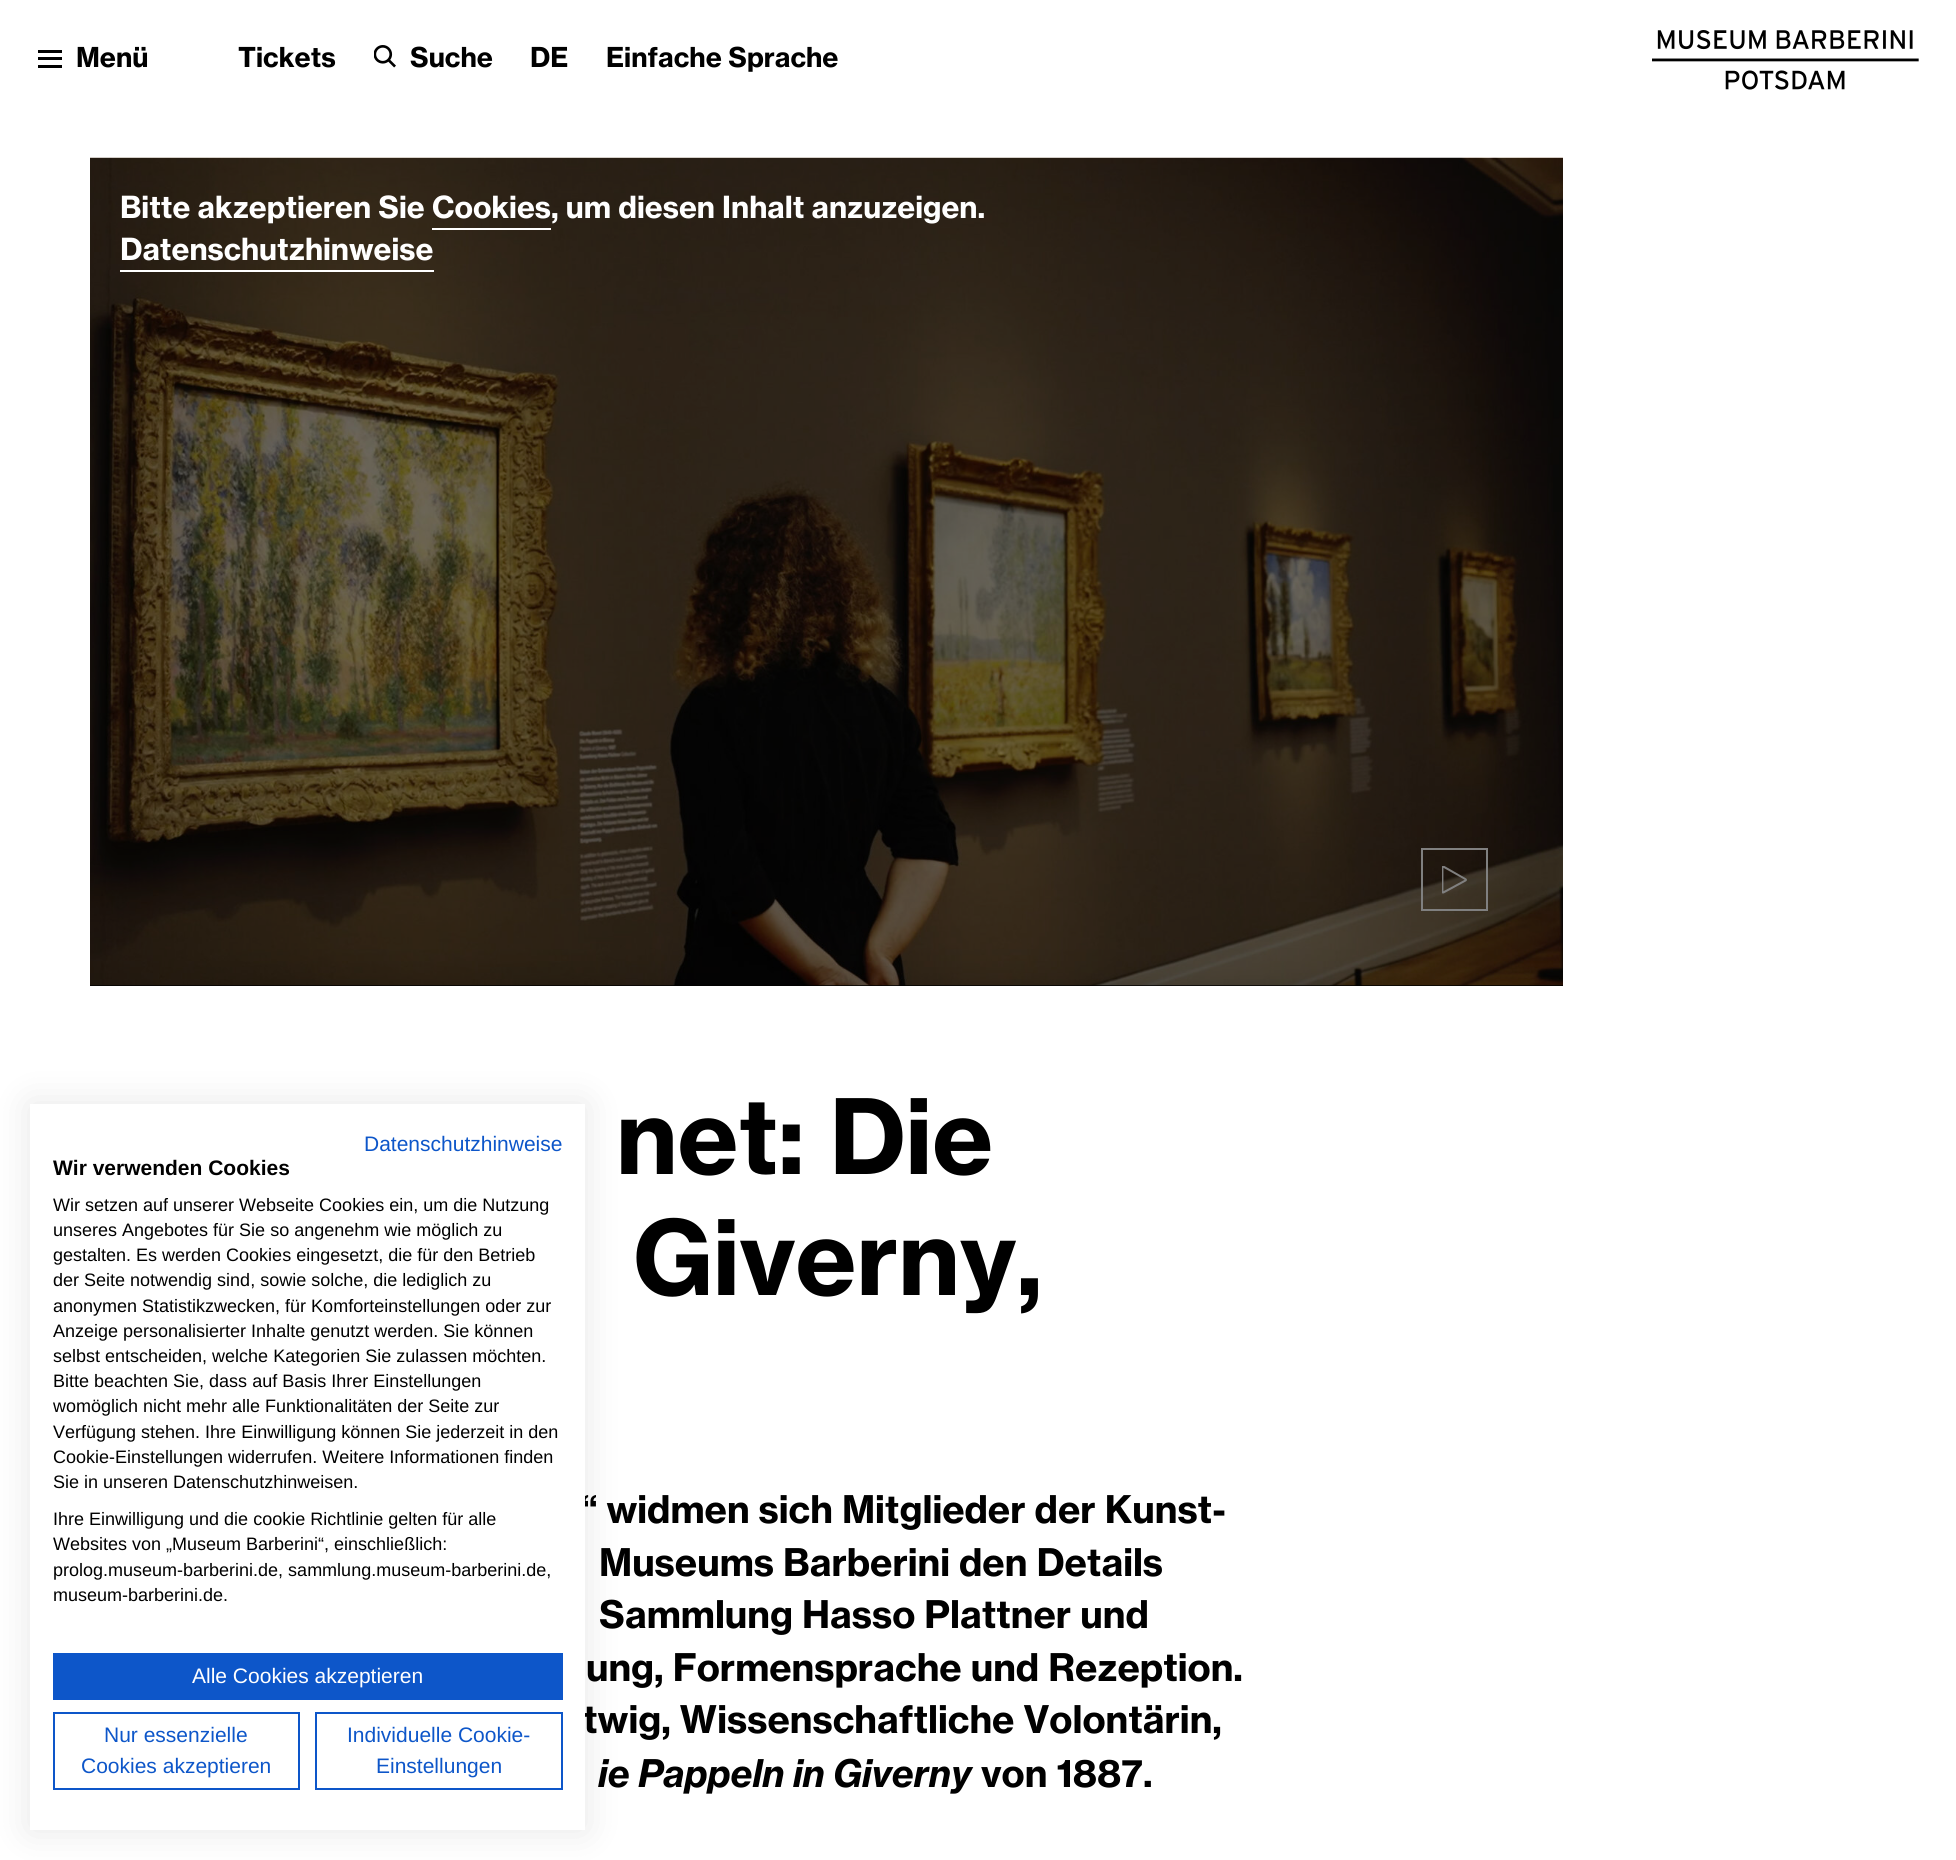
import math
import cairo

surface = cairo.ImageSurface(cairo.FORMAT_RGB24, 1956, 1860)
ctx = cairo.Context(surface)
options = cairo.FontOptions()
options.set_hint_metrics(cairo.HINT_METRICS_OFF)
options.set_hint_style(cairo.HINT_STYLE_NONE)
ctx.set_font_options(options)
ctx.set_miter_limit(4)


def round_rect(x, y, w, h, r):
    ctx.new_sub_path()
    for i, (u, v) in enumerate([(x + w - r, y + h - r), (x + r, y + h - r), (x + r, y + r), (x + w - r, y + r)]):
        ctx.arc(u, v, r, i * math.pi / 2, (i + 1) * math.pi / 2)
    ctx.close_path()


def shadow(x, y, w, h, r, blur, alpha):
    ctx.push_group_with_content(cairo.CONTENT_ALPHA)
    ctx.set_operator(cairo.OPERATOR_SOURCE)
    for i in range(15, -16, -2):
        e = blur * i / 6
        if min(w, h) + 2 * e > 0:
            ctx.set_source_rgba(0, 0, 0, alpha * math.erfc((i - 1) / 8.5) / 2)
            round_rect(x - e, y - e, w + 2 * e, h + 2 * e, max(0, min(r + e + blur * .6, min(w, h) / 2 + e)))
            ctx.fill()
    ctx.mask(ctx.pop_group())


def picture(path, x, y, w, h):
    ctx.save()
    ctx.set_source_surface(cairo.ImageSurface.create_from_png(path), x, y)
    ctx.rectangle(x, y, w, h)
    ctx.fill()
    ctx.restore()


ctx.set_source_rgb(1, 1, 1)
ctx.paint()
ctx.set_source_rgb(0, 0, 0)
ctx.rectangle(38, 50, 24, 3)
ctx.fill()
ctx.rectangle(38, 57, 24, 3)
ctx.fill()
ctx.rectangle(38, 65, 24, 3)
ctx.fill()
ctx.select_font_face("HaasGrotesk")
ctx.set_font_size(27)
ctx.move_to(76, 67)
ctx.show_text("Menü")
ctx.move_to(238, 67)
ctx.show_text("Tickets")
picture("img1.png", 374, 45, 22, 23)
ctx.move_to(410, 67)
ctx.show_text("Suche")
ctx.move_to(530, 67)
ctx.show_text("DE")
ctx.move_to(606, 67)
ctx.show_text("Einfache Sprache")
picture("img2.png", 1652, 30, 267, 60)
ctx.rectangle(90, 985, 1473, 1)
ctx.fill()
picture("img3.png", 90, 157, 1473, 829)
ctx.set_font_size(30)
ctx.set_source_rgb(1, 1, 1)
ctx.move_to(120, 218)
ctx.show_text("Bitte akzeptieren Sie Cookies")
ctx.move_to(551, 218)
ctx.show_text(", um diesen Inhalt anzuzeigen.")
ctx.rectangle(432, 228, 119, 2)
ctx.fill()
ctx.move_to(120, 260)
ctx.show_text("Datenschutzhinweise")
ctx.rectangle(120, 270, 314, 2)
ctx.fill()
ctx.rectangle(1422, 849, 65, 61)
ctx.set_source_rgb(0.502, 0.502, 0.502)
ctx.stroke()
picture("img4.png", 1442, 866, 25, 28)
ctx.set_font_size(102)
ctx.set_source_rgb(0, 0, 0)
ctx.move_to(616, 1174)
ctx.show_text("net: Die")
ctx.move_to(633, 1295)
ctx.show_text("Giverny,")
ctx.set_font_size(37.5)
ctx.move_to(581, 1523)
ctx.show_text("“ widmen sich Mitglieder der Kunst-")
ctx.move_to(599, 1576)
ctx.show_text("Museums Barberini den Details")
ctx.move_to(599, 1628)
ctx.show_text("Sammlung Hasso Plattner und")
ctx.move_to(586, 1681)
ctx.show_text("ung, Formensprache und Rezeption.")
ctx.move_to(583, 1733)
ctx.show_text("twig, Wissenschaftliche Volontärin,")
ctx.select_font_face("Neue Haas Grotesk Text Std", cairo.FONT_SLANT_ITALIC, cairo.FONT_WEIGHT_BOLD)
ctx.move_to(598, 1787)
ctx.show_text("ie Pappeln in Giverny")
ctx.select_font_face("HaasGrotesk")
ctx.move_to(981, 1787)
ctx.show_text("von 1887.")
ctx.set_source_rgb(0, 0, 0)
shadow(30, 1104, 555, 726, 0, 18, 0.1)
ctx.set_source_rgb(1, 1, 1)
ctx.rectangle(30, 1104, 555, 726)
ctx.fill()
ctx.select_font_face("Liberation Sans")
ctx.set_font_size(21)
ctx.set_source_rgb(0.051, 0.337, 0.788)
ctx.move_to(364, 1151)
ctx.show_text("Datenschutzhinweise")
ctx.select_font_face("Liberation Sans", cairo.FONT_SLANT_NORMAL, cairo.FONT_WEIGHT_BOLD)
ctx.set_source_rgb(0, 0, 0)
ctx.move_to(53, 1175)
ctx.show_text("Wir verwenden Cookies")
ctx.select_font_face("Liberation Sans")
ctx.set_font_size(18)
ctx.move_to(53, 1211)
ctx.show_text("Wir setzen auf unserer Webseite Cookies ein, um die Nutzung")
ctx.move_to(53, 1236)
ctx.show_text("unseres Angebotes für Sie so angenehm wie möglich zu")
ctx.move_to(53, 1261)
ctx.show_text("gestalten. Es werden Cookies eingesetzt, die für den Betrieb")
ctx.move_to(53, 1286)
ctx.show_text("der Seite notwendig sind, sowie solche, die lediglich zu")
ctx.move_to(53, 1312)
ctx.show_text("anonymen Statistikzwecken, für Komforteinstellungen oder zur")
ctx.move_to(53, 1337)
ctx.show_text("Anzeige personalisierter Inhalte genutzt werden. Sie können")
ctx.move_to(53, 1362)
ctx.show_text("selbst entscheiden, welche Kategorien Sie zulassen möchten.")
ctx.move_to(53, 1387)
ctx.show_text("Bitte beachten Sie, dass auf Basis Ihrer Einstellungen")
ctx.move_to(53, 1412)
ctx.show_text("womöglich nicht mehr alle Funktionalitäten der Seite zur")
ctx.move_to(53, 1438)
ctx.show_text("Verfügung stehen. Ihre Einwilligung können Sie jederzeit in den")
ctx.move_to(53, 1463)
ctx.show_text("Cookie-Einstellungen widerrufen. Weitere Informationen finden")
ctx.move_to(53, 1488)
ctx.show_text("Sie in unseren Datenschutzhinweisen.")
ctx.move_to(53, 1525)
ctx.show_text("Ihre Einwilligung und die cookie Richtlinie gelten für alle")
ctx.move_to(53, 1550)
ctx.show_text("Websites von „Museum Barberini“, einschließlich:")
ctx.move_to(53, 1576)
ctx.show_text("prolog.museum-barberini.de, sammlung.museum-barberini.de,")
ctx.move_to(53, 1601)
ctx.show_text("museum-barberini.de.")
ctx.set_source_rgb(0.051, 0.337, 0.788)
ctx.rectangle(53, 1653, 510, 47)
ctx.fill()
ctx.set_font_size(21)
ctx.set_source_rgb(1, 1, 1)
ctx.move_to(192, 1683)
ctx.show_text("Alle Cookies akzeptieren")
ctx.rectangle(54, 1713, 245, 76)
ctx.set_source_rgb(0.051, 0.337, 0.788)
ctx.stroke()
ctx.move_to(104, 1742)
ctx.show_text("Nur essenzielle")
ctx.move_to(81, 1773)
ctx.show_text("Cookies akzeptieren")
ctx.rectangle(316, 1713, 246, 76)
ctx.stroke()
ctx.move_to(347, 1742)
ctx.show_text("Individuelle Cookie-")
ctx.move_to(376, 1773)
ctx.show_text("Einstellungen")
surface.write_to_png("page.png")
